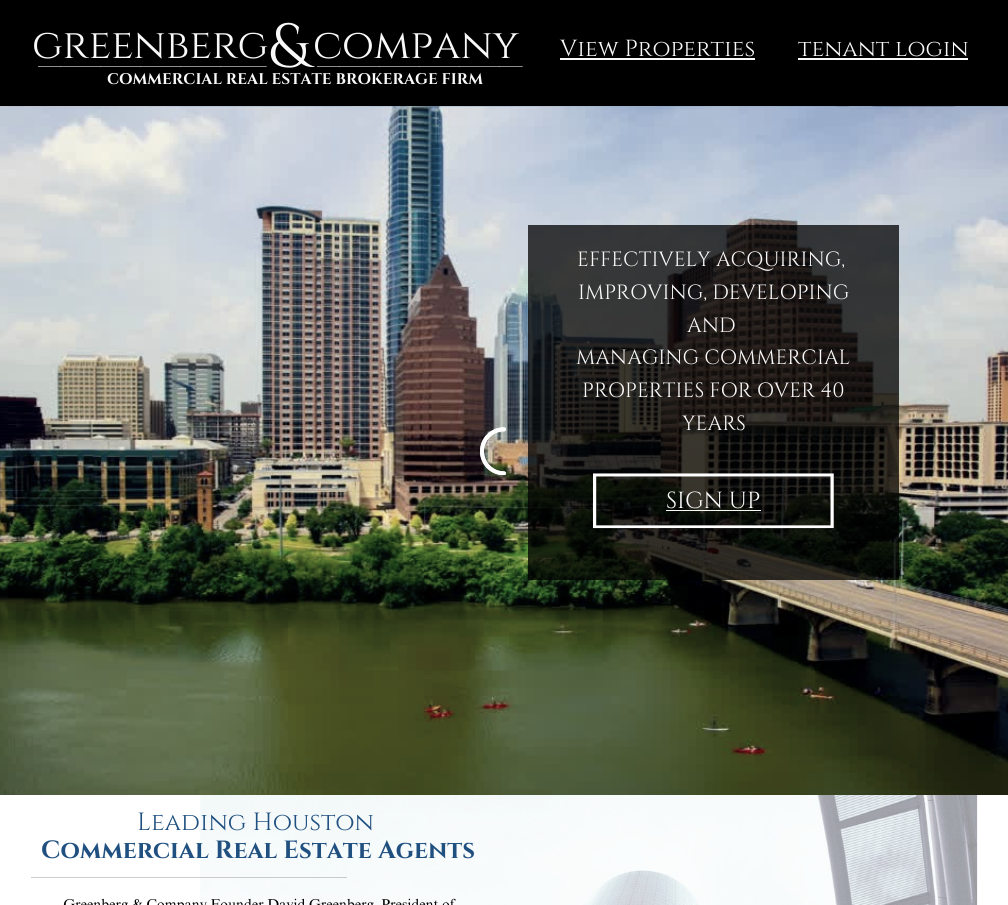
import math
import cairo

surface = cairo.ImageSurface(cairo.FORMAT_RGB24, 1008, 905)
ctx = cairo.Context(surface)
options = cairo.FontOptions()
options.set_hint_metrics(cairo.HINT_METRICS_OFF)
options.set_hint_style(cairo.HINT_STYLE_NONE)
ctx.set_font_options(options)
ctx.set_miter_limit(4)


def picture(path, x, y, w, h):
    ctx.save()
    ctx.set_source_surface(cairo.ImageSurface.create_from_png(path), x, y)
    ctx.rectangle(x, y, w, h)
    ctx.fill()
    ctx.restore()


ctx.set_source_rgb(0, 0, 0)
ctx.paint()
ctx.select_font_face("Cinzel")
ctx.set_font_size(41.25)
ctx.set_source_rgb(0.98, 0.976, 0.973)
ctx.move_to(32, 58)
ctx.show_text("greenberg")
ctx.set_font_size(62)
ctx.move_to(269, 67)
ctx.show_text("&")
ctx.set_font_size(41.25)
ctx.move_to(313, 58)
ctx.show_text("company")
ctx.select_font_face("Open Sans Light")
ctx.set_font_size(13.9)
ctx.move_to(38, 65)
ctx.show_text("________________________________________")
ctx.move_to(317, 65)
ctx.show_text("____________________________________")
ctx.select_font_face("Cinzel", cairo.FONT_SLANT_NORMAL, cairo.FONT_WEIGHT_BOLD)
ctx.set_font_size(15.45)
ctx.move_to(107, 84)
ctx.show_text("COMMERCIAL REAL ESTATE BROKERAGE FIRM")
ctx.select_font_face("Cinzel")
ctx.set_font_size(23.25)
ctx.move_to(560, 56)
ctx.show_text("View Properties")
ctx.rectangle(560, 58, 195, 2)
ctx.fill()
ctx.move_to(798, 56)
ctx.show_text("tenant login")
ctx.rectangle(798, 58, 170, 2)
ctx.fill()
picture("img1.png", 0, 106, 1008, 1)
picture("img2.png", 0, 106, 1008, 689)
ctx.set_source_rgba(0, 0, 0, 0.75)
ctx.rectangle(528, 225, 371, 355)
ctx.fill()
ctx.set_font_size(20.6)
ctx.set_source_rgb(0.98, 0.976, 0.973)
ctx.move_to(577, 266)
ctx.show_text("EFFECTIVELY ACQUIRING,")
ctx.move_to(578, 299)
ctx.show_text("IMPROVING, DEVELOPING")
ctx.move_to(687, 332)
ctx.show_text("AND")
ctx.move_to(576, 364)
ctx.show_text("MANAGING COMMERCIAL")
ctx.move_to(582, 397)
ctx.show_text("PROPERTIES FOR OVER 40")
ctx.move_to(682, 430)
ctx.show_text("YEARS")
picture("img3.png", 593, 473, 241, 56)
ctx.set_font_size(23.25)
ctx.move_to(666, 508)
ctx.show_text("SIGN UP")
ctx.rectangle(666, 510, 95, 1)
ctx.fill()
picture("img4.png", 480, 427, 26, 48)
picture("img5.png", 480, 427, 26, 48)
ctx.set_source_rgb(1, 1, 1)
ctx.rectangle(0, 795, 1008, 110)
ctx.fill()
picture("img6.png", 200, 795, 778, 110)
ctx.set_font_size(24.9)
ctx.set_source_rgb(0.122, 0.314, 0.502)
ctx.move_to(137, 830)
ctx.show_text("Leading Houston")
ctx.select_font_face("Cinzel", cairo.FONT_SLANT_NORMAL, cairo.FONT_WEIGHT_BOLD)
ctx.move_to(41, 858)
ctx.show_text("Commercial Real Estate Agents")
ctx.save()
ctx.rectangle(0, 877, 347, 1)
ctx.clip()
ctx.new_path()
ctx.move_to(31, 878)
ctx.line_to(487, 878)
ctx.set_source_rgb(0.608, 0.608, 0.608)
ctx.set_line_width(1)
ctx.stroke()
ctx.restore()
picture("img7.png", 63, 898, 393, 7)
surface.write_to_png("page.png")
